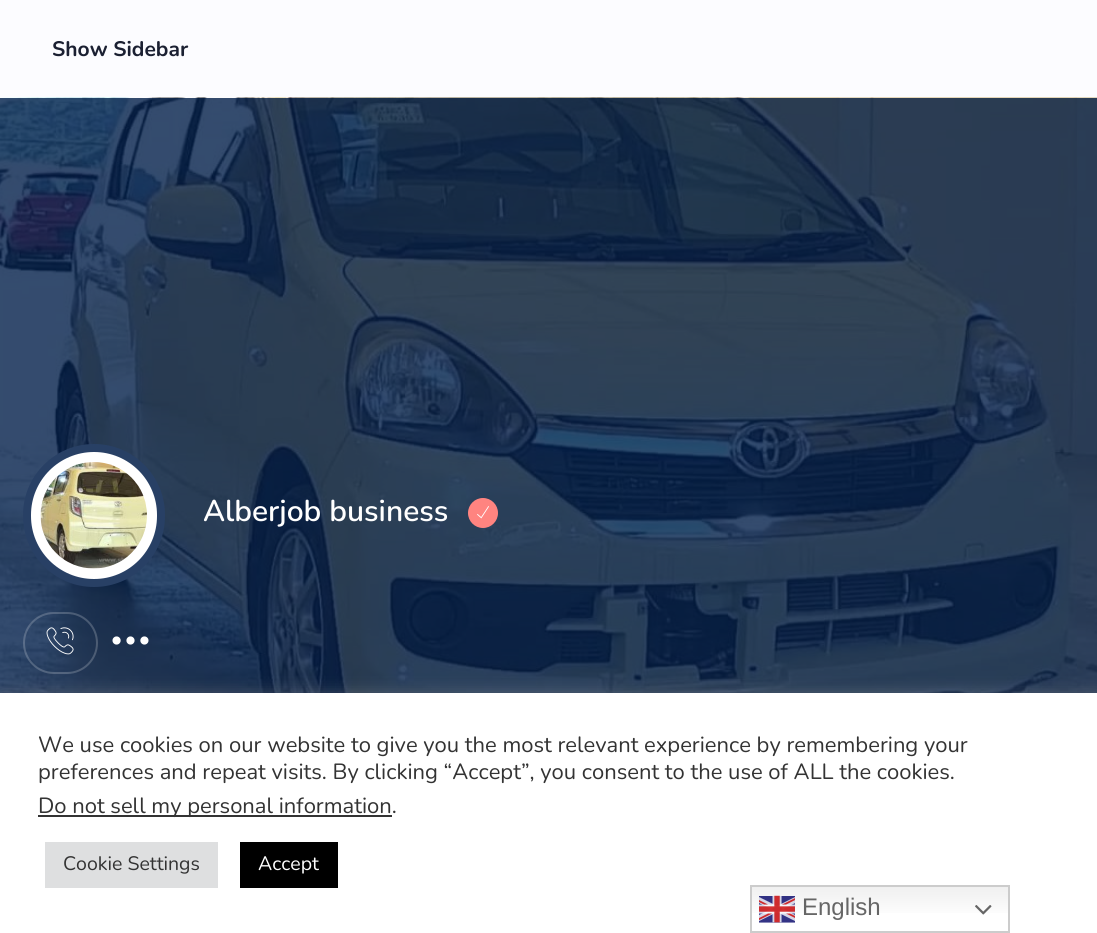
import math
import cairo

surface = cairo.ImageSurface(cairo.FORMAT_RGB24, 1097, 933)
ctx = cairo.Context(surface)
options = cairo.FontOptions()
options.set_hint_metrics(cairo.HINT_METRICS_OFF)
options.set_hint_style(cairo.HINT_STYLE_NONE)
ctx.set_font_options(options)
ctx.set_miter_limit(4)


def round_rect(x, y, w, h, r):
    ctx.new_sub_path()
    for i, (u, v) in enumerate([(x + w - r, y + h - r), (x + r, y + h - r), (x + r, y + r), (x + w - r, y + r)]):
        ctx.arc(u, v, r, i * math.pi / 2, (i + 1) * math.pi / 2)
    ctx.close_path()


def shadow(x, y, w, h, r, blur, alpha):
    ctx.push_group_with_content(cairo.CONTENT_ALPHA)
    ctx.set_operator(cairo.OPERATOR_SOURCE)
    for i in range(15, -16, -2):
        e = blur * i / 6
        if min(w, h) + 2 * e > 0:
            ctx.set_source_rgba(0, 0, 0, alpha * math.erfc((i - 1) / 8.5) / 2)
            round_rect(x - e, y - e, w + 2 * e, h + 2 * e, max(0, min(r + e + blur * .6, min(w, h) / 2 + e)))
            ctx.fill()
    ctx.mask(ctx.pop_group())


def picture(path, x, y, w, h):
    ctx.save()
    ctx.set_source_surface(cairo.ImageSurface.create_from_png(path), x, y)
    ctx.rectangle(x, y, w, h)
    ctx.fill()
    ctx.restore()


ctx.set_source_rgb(0.988, 0.988, 1)
ctx.paint()
ctx.select_font_face("Nunito", cairo.FONT_SLANT_NORMAL, cairo.FONT_WEIGHT_BOLD)
ctx.set_font_size(21)
ctx.set_source_rgb(0.106, 0.125, 0.196)
ctx.move_to(52, 56)
ctx.show_text("Show Sidebar")
picture("img1.png", 0, 97, 1097, 596)
ctx.set_source_rgb(1, 1, 1)
round_rect(27, 448, 134, 135, 67)
ctx.fill_preserve()
ctx.set_source_rgb(0.157, 0.251, 0.396)
ctx.set_line_width(8)
ctx.stroke()
picture("img2.png", 40, 462, 107, 107)
ctx.select_font_face("Nunito SemiBold")
ctx.set_font_size(30)
ctx.set_source_rgb(1, 1, 1)
ctx.move_to(203, 521)
ctx.show_text("Alberjob business")
ctx.set_source_rgb(1, 0.518, 0.502)
ctx.new_path()
ctx.arc(483, 513, 15, 0, 2 * math.pi)
ctx.fill()
picture("img3.png", 477, 506, 12, 13)
round_rect(24, 613, 73, 60, 30)
ctx.set_source_rgba(1, 1, 1, 0.2)
ctx.set_line_width(2)
ctx.stroke()
picture("img4.png", 46, 627, 28, 28)
picture("img5.png", 112, 636, 37, 9)
ctx.set_source_rgb(0.675, 0.671, 0.671)
shadow(0, 692, 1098, 240, 0, 7.5, 0.3)
ctx.set_source_rgb(1, 1, 1)
ctx.rectangle(0, 693, 1097, 240)
ctx.fill()
ctx.select_font_face("Nunito")
ctx.set_font_size(22)
ctx.set_source_rgb(0.2, 0.2, 0.2)
ctx.move_to(38, 752)
ctx.show_text("We use cookies on our website to give you the most relevant experience by remembering your")
ctx.move_to(38, 779)
ctx.show_text("preferences and repeat visits. By clicking “Accept”, you consent to the use of ALL the cookies.")
ctx.rectangle(38, 815, 354, 2)
ctx.fill()
ctx.move_to(38, 813)
ctx.show_text("Do not sell my personal information.")
ctx.set_source_rgb(0.871, 0.875, 0.878)
ctx.rectangle(45, 842, 173, 46)
ctx.fill()
ctx.set_font_size(19.5)
ctx.set_source_rgb(0.2, 0.2, 0.2)
ctx.move_to(63, 870)
ctx.show_text("Cookie Settings")
ctx.set_source_rgb(0, 0, 0)
ctx.rectangle(240, 842, 98, 46)
ctx.fill()
ctx.set_source_rgb(1, 1, 1)
ctx.move_to(258, 870)
ctx.show_text("Accept")
gradient = cairo.LinearGradient(880, 885, 880, 933)
gradient.add_color_stop_rgba(0, 0.937, 0.937, 0.937, 1)
gradient.add_color_stop_rgba(0.7, 1, 1, 1, 1)
ctx.set_source(gradient)
ctx.rectangle(752, 887, 256, 26)
ctx.fill()
ctx.rectangle(751, 886, 258, 46)
ctx.set_source_rgb(0.8, 0.8, 0.8)
ctx.stroke()
picture("img6.png", 759, 895, 36, 28)
ctx.select_font_face("Liberation Sans")
ctx.set_font_size(24)
ctx.set_source_rgb(0.4, 0.4, 0.4)
ctx.move_to(802, 915)
ctx.show_text("English")
picture("img7.png", 975, 905, 17, 10)
surface.write_to_png("page.png")
